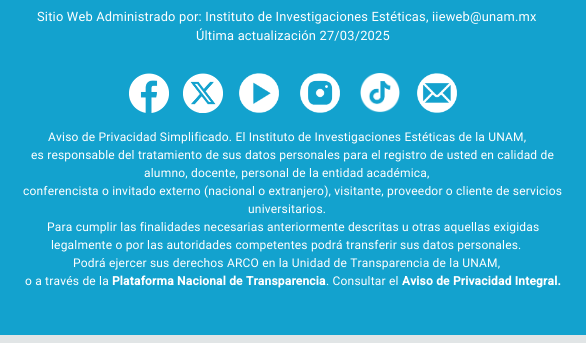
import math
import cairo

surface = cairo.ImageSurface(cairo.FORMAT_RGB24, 586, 343)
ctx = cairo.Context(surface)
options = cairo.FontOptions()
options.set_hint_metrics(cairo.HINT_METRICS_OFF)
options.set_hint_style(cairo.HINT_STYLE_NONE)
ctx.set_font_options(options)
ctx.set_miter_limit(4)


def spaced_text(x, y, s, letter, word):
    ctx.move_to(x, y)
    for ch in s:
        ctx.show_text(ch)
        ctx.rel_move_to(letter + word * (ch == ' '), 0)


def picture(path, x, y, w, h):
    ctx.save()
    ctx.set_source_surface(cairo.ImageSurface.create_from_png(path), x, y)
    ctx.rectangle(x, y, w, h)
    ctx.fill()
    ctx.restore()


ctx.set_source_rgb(0.882, 0.898, 0.902)
ctx.paint()
ctx.set_source_rgb(0.078, 0.635, 0.808)
ctx.rectangle(0, 0, 586, 335)
ctx.fill()
ctx.select_font_face("Roboto")
ctx.set_font_size(12.85)
ctx.set_source_rgb(1, 1, 1)
spaced_text(37, 21, "Sitio Web Administrado por: Instituto de Investigaciones Estéticas, iieweb@unam.mx", 0.2, 0)
spaced_text(196, 40, "Última actualización 27/03/2025", 0.2, 0)
picture("img1.png", 129, 73, 40, 40)
picture("img2.png", 183, 73, 40, 40)
picture("img3.png", 239, 73, 40, 40)
picture("img4.png", 300, 73, 40, 40)
picture("img5.png", 360, 73, 40, 40)
picture("img6.png", 417, 73, 40, 40)
ctx.set_font_size(12)
spaced_text(48, 141, "Aviso de Privacidad Simplificado. El Instituto de Investigaciones Estéticas de la UNAM,", 0.2, 0)
spaced_text(31, 159, "es responsable del tratamiento de sus datos personales para el registro de usted en calidad de", 0.2, 0)
spaced_text(144, 177, "alumno, docente, personal de la entidad académica,", 0.2, 0)
spaced_text(23, 195, "conferencista o invitado externo (nacional o extranjero), visitante, proveedor o cliente de servicios", 0.2, 0)
spaced_text(248, 213, "universitarios.", 0.2, 0)
spaced_text(47, 231, "Para cumplir las finalidades necesarias anteriormente descritas u otras aquellas exigidas", 0.2, 0)
spaced_text(51, 249, "legalmente o por las autoridades competentes podrá transferir sus datos personales.", 0.2, 0)
spaced_text(73, 267, "Podrá ejercer sus derechos ARCO en la Unidad de Transparencia de la UNAM,", 0.2, 0)
spaced_text(25, 285, "o a través de la", 0.2, 0)
ctx.select_font_face("Roboto", cairo.FONT_SLANT_NORMAL, cairo.FONT_WEIGHT_BOLD)
spaced_text(112, 285, "Plataforma Nacional de Transparencia", 0.2, 0)
ctx.select_font_face("Roboto")
spaced_text(326, 285, ". Consultar el", 0.2, 0)
ctx.select_font_face("Roboto", cairo.FONT_SLANT_NORMAL, cairo.FONT_WEIGHT_BOLD)
spaced_text(402, 285, "Aviso de Privacidad Integral.", 0.2, 0)
surface.write_to_png("page.png")
